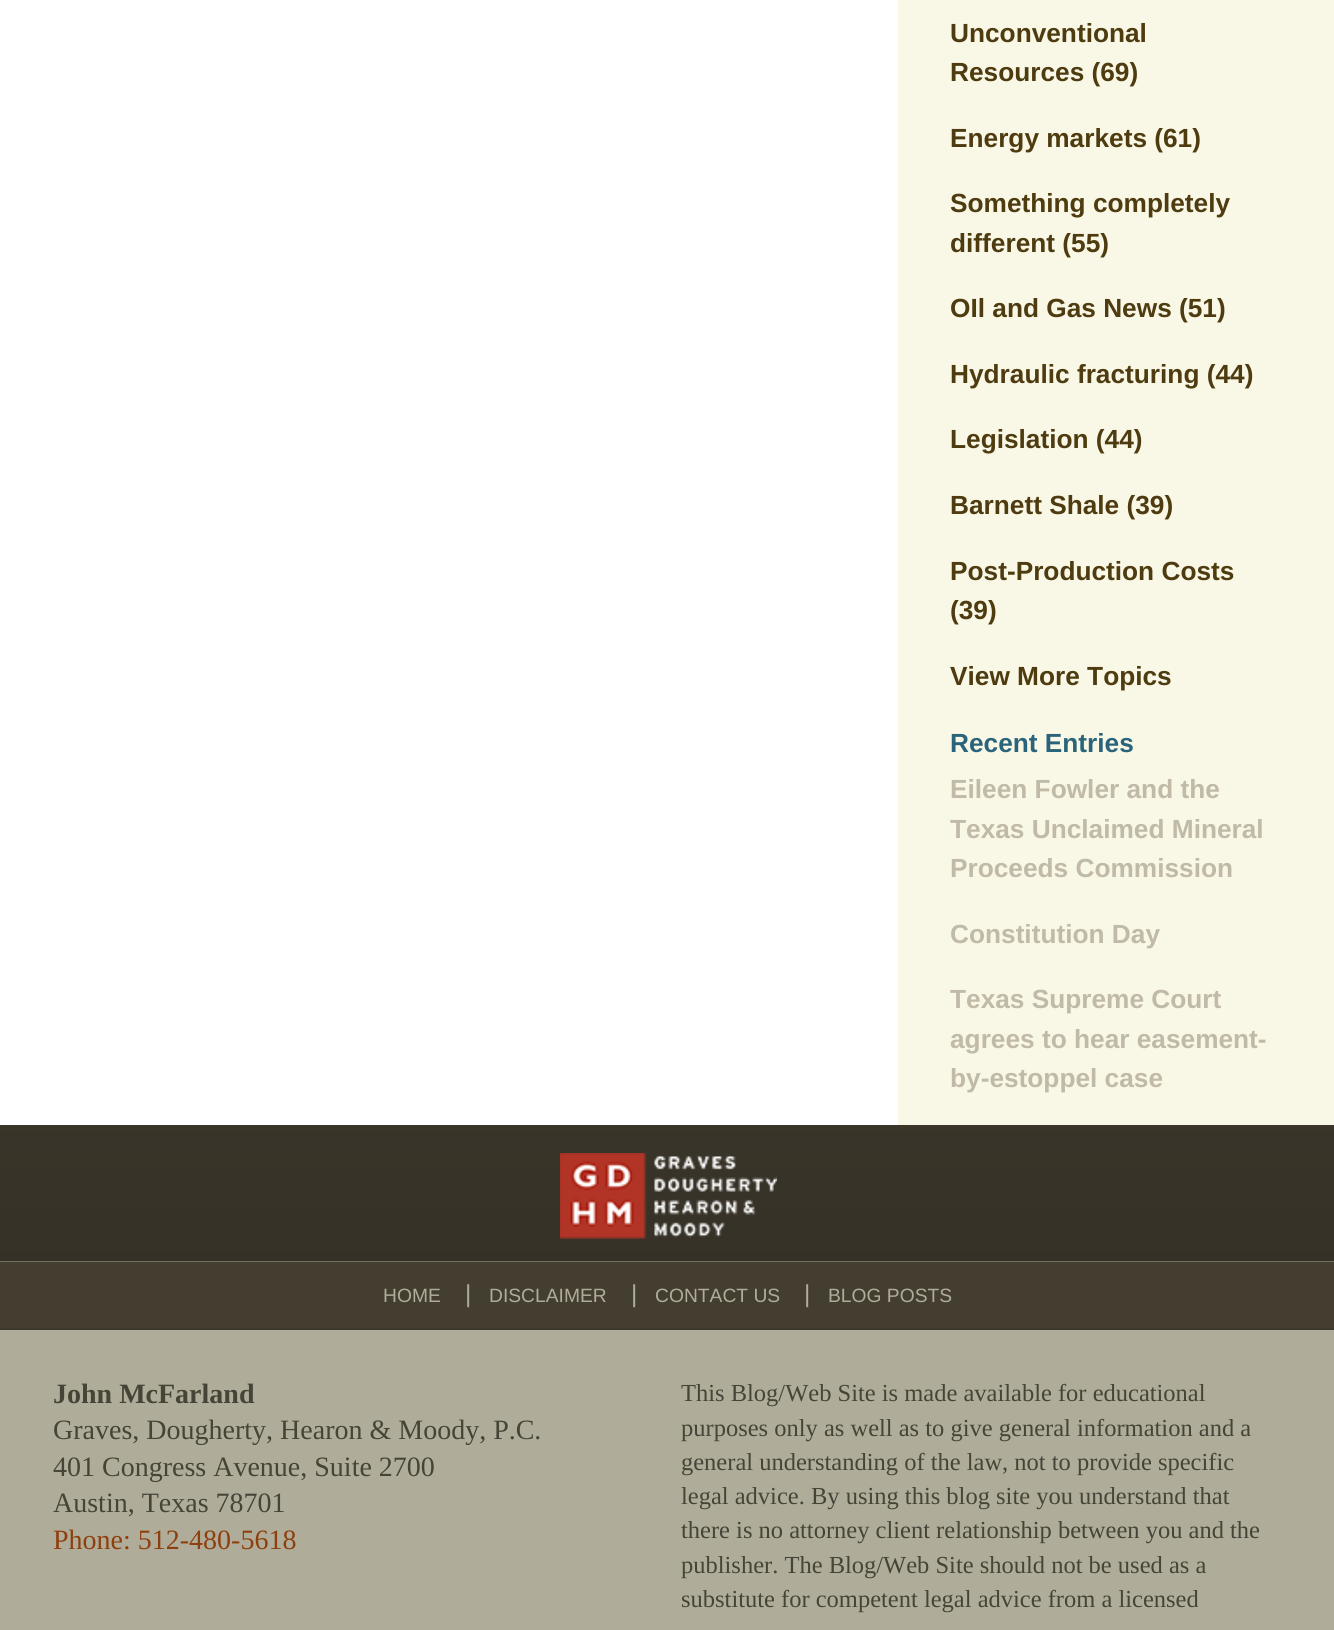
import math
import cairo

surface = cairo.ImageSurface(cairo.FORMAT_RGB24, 1334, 1630)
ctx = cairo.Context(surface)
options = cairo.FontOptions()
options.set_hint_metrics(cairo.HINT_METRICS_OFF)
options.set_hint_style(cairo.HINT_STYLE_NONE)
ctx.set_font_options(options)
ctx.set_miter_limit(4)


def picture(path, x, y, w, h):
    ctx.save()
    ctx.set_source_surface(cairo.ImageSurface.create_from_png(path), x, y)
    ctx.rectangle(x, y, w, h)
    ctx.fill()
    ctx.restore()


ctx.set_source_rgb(1, 1, 1)
ctx.paint()
ctx.set_source_rgb(0.973, 0.965, 0.902)
ctx.rectangle(898, 0, 436, 1125)
ctx.fill()
ctx.select_font_face("Liberation Sans", cairo.FONT_SLANT_NORMAL, cairo.FONT_WEIGHT_BOLD)
ctx.set_font_size(26.25)
ctx.set_source_rgb(0.306, 0.235, 0.063)
ctx.move_to(950, 42)
ctx.show_text("Unconventional")
ctx.move_to(950, 81)
ctx.show_text("Resources (69)")
ctx.move_to(950, 147)
ctx.show_text("Energy markets (61)")
ctx.move_to(950, 212)
ctx.show_text("Something completely")
ctx.move_to(950, 252)
ctx.show_text("different (55)")
ctx.move_to(950, 317)
ctx.show_text("OIl and Gas News (51)")
ctx.move_to(950, 383)
ctx.show_text("Hydraulic fracturing (44)")
ctx.move_to(950, 448)
ctx.show_text("Legislation (44)")
ctx.move_to(950, 514)
ctx.show_text("Barnett Shale (39)")
ctx.move_to(950, 580)
ctx.show_text("Post-Production Costs")
ctx.move_to(950, 619)
ctx.show_text("(39)")
ctx.move_to(950, 685)
ctx.show_text("View More Topics")
ctx.set_source_rgb(0.165, 0.392, 0.482)
ctx.move_to(950, 752)
ctx.show_text("Recent Entries")
ctx.set_source_rgb(0.753, 0.729, 0.655)
ctx.move_to(950, 798)
ctx.show_text("Eileen Fowler and the")
ctx.move_to(950, 838)
ctx.show_text("Texas Unclaimed Mineral")
ctx.move_to(950, 877)
ctx.show_text("Proceeds Commission")
ctx.move_to(950, 943)
ctx.show_text("Constitution Day")
ctx.move_to(950, 1008)
ctx.show_text("Texas Supreme Court")
ctx.move_to(950, 1048)
ctx.show_text("agrees to hear easement-")
ctx.move_to(950, 1087)
ctx.show_text("by-estoppel case")
ctx.set_source_rgb(0.686, 0.678, 0.604)
ctx.rectangle(0, 1330, 1334, 300)
ctx.fill()
picture("img1.png", 0, 1125, 1334, 137)
picture("img2.png", 560, 1153, 217, 86)
ctx.set_source_rgb(0.267, 0.243, 0.192)
ctx.rectangle(0, 1262, 1334, 66)
ctx.fill()
ctx.set_source_rgb(0.243, 0.22, 0.173)
ctx.rectangle(0, 1328, 1334, 2)
ctx.fill()
ctx.select_font_face("Liberation Sans")
ctx.set_font_size(19.25)
ctx.set_source_rgb(0.69, 0.675, 0.604)
ctx.move_to(383, 1302)
ctx.show_text("HOME")
ctx.set_font_size(24.5)
ctx.move_to(465, 1302)
ctx.show_text("|")
ctx.set_font_size(19.25)
ctx.move_to(489, 1302)
ctx.show_text("DISCLAIMER")
ctx.set_font_size(24.5)
ctx.move_to(631, 1302)
ctx.show_text("|")
ctx.set_font_size(19.25)
ctx.move_to(655, 1302)
ctx.show_text("CONTACT US")
ctx.set_font_size(24.5)
ctx.move_to(804, 1302)
ctx.show_text("|")
ctx.set_font_size(19.25)
ctx.move_to(828, 1302)
ctx.show_text("BLOG POSTS")
ctx.select_font_face("Liberation Serif", cairo.FONT_SLANT_NORMAL, cairo.FONT_WEIGHT_BOLD)
ctx.set_font_size(28)
ctx.set_source_rgb(0.271, 0.267, 0.212)
ctx.move_to(53, 1403)
ctx.show_text("John McFarland")
ctx.select_font_face("Liberation Serif")
ctx.move_to(53, 1439)
ctx.show_text("Graves, Dougherty, Hearon & Moody, P.C.")
ctx.move_to(53, 1476)
ctx.show_text("401 Congress Avenue, Suite 2700")
ctx.move_to(53, 1512)
ctx.show_text("Austin, Texas 78701")
ctx.set_source_rgb(0.561, 0.247, 0.051)
ctx.move_to(53, 1549)
ctx.show_text("Phone: 512-480-5618")
ctx.set_font_size(24.5)
ctx.set_source_rgb(0.271, 0.267, 0.212)
ctx.move_to(681, 1401)
ctx.show_text("This Blog/Web Site is made available for educational")
ctx.move_to(681, 1436)
ctx.show_text("purposes only as well as to give general information and a")
ctx.move_to(681, 1470)
ctx.show_text("general understanding of the law, not to provide specific")
ctx.move_to(681, 1504)
ctx.show_text("legal advice. By using this blog site you understand that")
ctx.move_to(681, 1538)
ctx.show_text("there is no attorney client relationship between you and the")
ctx.move_to(681, 1573)
ctx.show_text("publisher. The Blog/Web Site should not be used as a")
ctx.move_to(681, 1607)
ctx.show_text("substitute for competent legal advice from a licensed")
surface.write_to_png("page.png")
